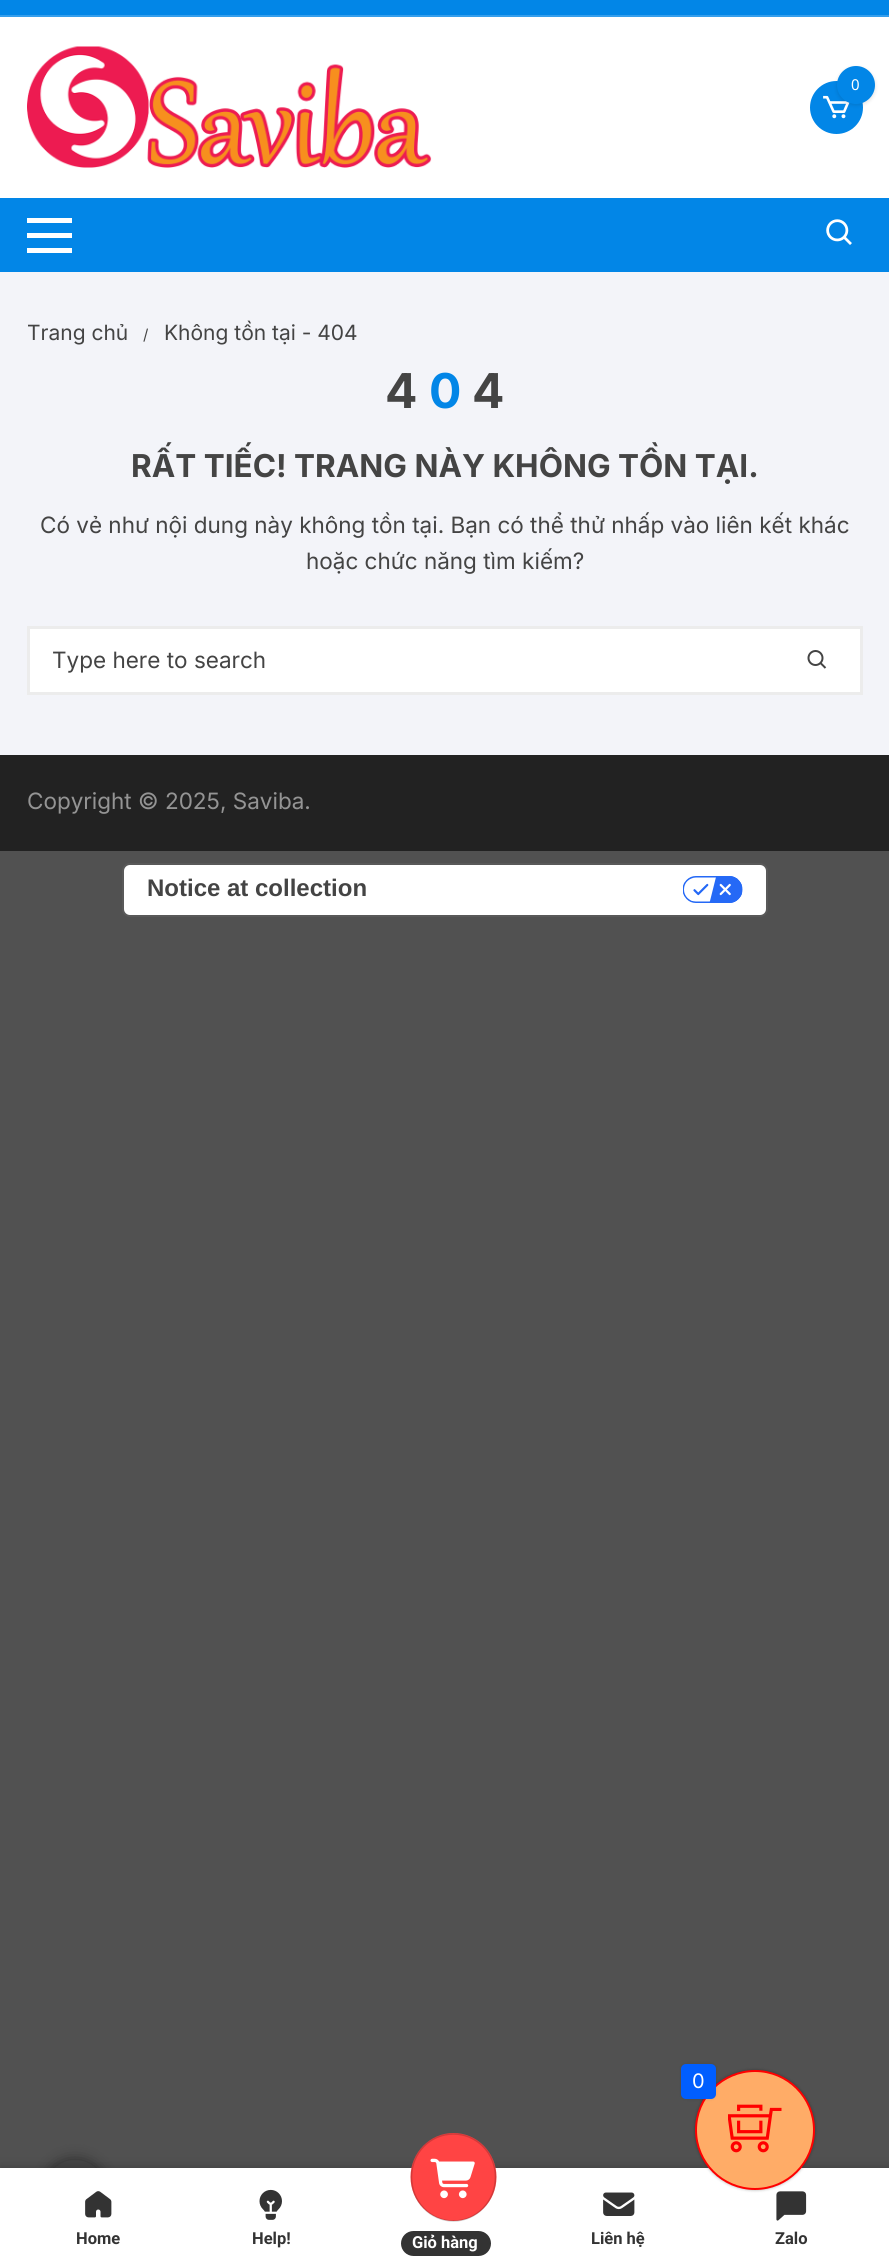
import math
import cairo

surface = cairo.ImageSurface(cairo.FORMAT_RGB24, 889, 2264)
ctx = cairo.Context(surface)
options = cairo.FontOptions()
options.set_hint_metrics(cairo.HINT_METRICS_OFF)
options.set_hint_style(cairo.HINT_STYLE_NONE)
ctx.set_font_options(options)
ctx.set_miter_limit(4)


def round_rect(x, y, w, h, r):
    ctx.new_sub_path()
    for i, (u, v) in enumerate([(x + w - r, y + h - r), (x + r, y + h - r), (x + r, y + r), (x + w - r, y + r)]):
        ctx.arc(u, v, r, i * math.pi / 2, (i + 1) * math.pi / 2)
    ctx.close_path()


def shadow(x, y, w, h, r, blur, alpha):
    ctx.push_group_with_content(cairo.CONTENT_ALPHA)
    ctx.set_operator(cairo.OPERATOR_SOURCE)
    for i in range(15, -16, -2):
        e = blur * i / 6
        if min(w, h) + 2 * e > 0:
            ctx.set_source_rgba(0, 0, 0, alpha * math.erfc((i - 1) / 8.5) / 2)
            round_rect(x - e, y - e, w + 2 * e, h + 2 * e, max(0, min(r + e + blur * .6, min(w, h) / 2 + e)))
            ctx.fill()
    ctx.mask(ctx.pop_group())


def picture(path, x, y, w, h):
    ctx.save()
    ctx.set_source_surface(cairo.ImageSurface.create_from_png(path), x, y)
    ctx.rectangle(x, y, w, h)
    ctx.fill()
    ctx.restore()


ctx.set_source_rgb(0.318, 0.318, 0.318)
ctx.paint()
ctx.set_source_rgb(0.953, 0.957, 0.973)
ctx.rectangle(0, 272, 889, 483)
ctx.fill()
ctx.set_source_rgb(1, 1, 1)
ctx.rectangle(0, 17, 889, 181)
ctx.fill()
ctx.set_source_rgb(0.008, 0.525, 0.906)
ctx.rectangle(0, 0, 889, 15)
ctx.fill()
ctx.set_source_rgb(0.208, 0.62, 0.925)
ctx.rectangle(0, 15, 889, 2)
ctx.fill()
picture("img1.png", 27, 46, 405, 122)
ctx.set_source_rgb(0.008, 0.525, 0.906)
ctx.arc(836.5, 107.5, 26.5, 0, 2 * math.pi)
ctx.fill()
picture("img2.png", 823, 95, 27, 24)
ctx.set_source_rgb(0, 0, 0)
shadow(837, 68, 38, 37, 18.5, 2, 0.13)
ctx.set_source_rgb(0.008, 0.525, 0.906)
ctx.arc(856, 85, 19, 0, 2 * math.pi)
ctx.fill()
ctx.select_font_face("Noto Sans")
ctx.set_font_size(15)
ctx.set_source_rgb(1, 1, 1)
ctx.move_to(851, 90)
ctx.show_text("0")
ctx.set_source_rgb(0.008, 0.525, 0.906)
ctx.rectangle(0, 198, 889, 74)
ctx.fill()
ctx.set_source_rgb(1, 1, 1)
ctx.rectangle(27, 218, 45, 5)
ctx.fill()
ctx.rectangle(27, 233, 45, 5)
ctx.fill()
ctx.rectangle(27, 248, 45, 5)
ctx.fill()
picture("img3.png", 826, 219, 26, 26)
ctx.select_font_face("Inter")
ctx.set_font_size(21)
ctx.set_source_rgb(0.267, 0.267, 0.267)
ctx.move_to(27, 340)
ctx.show_text("Trang chủ")
ctx.set_font_size(15)
ctx.move_to(143, 340)
ctx.show_text("/")
ctx.set_font_size(21)
ctx.move_to(164, 340)
ctx.show_text("Không tồn tại - 404")
ctx.select_font_face("Inter", cairo.FONT_SLANT_NORMAL, cairo.FONT_WEIGHT_BOLD)
ctx.set_font_size(48)
ctx.move_to(385, 408)
ctx.show_text("4")
ctx.set_source_rgb(0.008, 0.525, 0.906)
ctx.move_to(429, 408)
ctx.show_text("0")
ctx.set_source_rgb(0.267, 0.267, 0.267)
ctx.move_to(472, 408)
ctx.show_text("4")
ctx.set_font_size(31.5)
ctx.move_to(131, 477)
ctx.show_text("RẤT TIẾC! TRANG NÀY KHÔNG TỒN TẠI.")
ctx.select_font_face("Inter")
ctx.set_font_size(22.5)
ctx.move_to(40, 533)
ctx.show_text("Có vẻ như nội dung này không tồn tại. Bạn có thể thử nhấp vào liên kết khác")
ctx.move_to(306, 569)
ctx.show_text("hoặc chức năng tìm kiếm?")
ctx.set_source_rgb(1, 1, 1)
ctx.rectangle(28.5, 627.5, 833, 66)
ctx.fill_preserve()
ctx.set_source_rgb(0.925, 0.925, 0.925)
ctx.set_line_width(3)
ctx.stroke()
ctx.set_source_rgb(0.267, 0.267, 0.267)
ctx.move_to(52, 668)
ctx.show_text("Type here to search")
picture("img4.png", 807, 650, 20, 19)
ctx.set_source_rgb(0.133, 0.133, 0.133)
ctx.rectangle(0, 755, 889, 96)
ctx.fill()
ctx.set_source_rgb(0.58, 0.58, 0.58)
ctx.move_to(27, 809)
ctx.show_text("Copyright © 2025, Saviba.")
ctx.set_source_rgb(1, 1, 1)
round_rect(123, 864, 644, 52, 7)
ctx.fill_preserve()
ctx.set_source_rgb(0.349, 0.349, 0.349)
ctx.set_line_width(2)
ctx.stroke()
ctx.select_font_face("Liberation Sans", cairo.FONT_SLANT_NORMAL, cairo.FONT_WEIGHT_BOLD)
ctx.set_font_size(24)
ctx.set_source_rgb(0.267, 0.267, 0.267)
ctx.move_to(147, 896)
ctx.show_text("Notice at collection")
picture("img5.png", 683, 876, 60, 27)
ctx.set_source_rgb(0, 0, 0)
shadow(45, 2160, 60, 60, 30, 7.5, 0.46)
ctx.set_source_rgb(0.267, 0.267, 0.267)
ctx.arc(75, 2190, 30, 0, 2 * math.pi)
ctx.fill()
ctx.set_source_rgb(0, 0, 0)
shadow(0, 2166, 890, 98, 0, 5, 0.19)
ctx.set_source_rgb(1, 1, 1)
ctx.rectangle(0, 2168, 889, 96)
ctx.fill()
picture("img11.png", 776, 2191, 31, 30)
ctx.set_source_rgb(0, 0, 0)
shadow(695, 2070, 120, 120, 60, 1.5, 0.3)
ctx.set_source_rgb(1, 0.675, 0.404)
ctx.arc(755, 2130, 59, 0, 2 * math.pi)
ctx.fill_preserve()
ctx.set_source_rgb(1, 0, 0)
ctx.stroke()
ctx.set_source_rgb(0, 0, 0)
shadow(681, 2064, 35, 35, 5, 1.5, 0.1)
ctx.set_source_rgb(0, 0.369, 1)
round_rect(681, 2064, 35, 35, 5)
ctx.fill()
ctx.select_font_face("Inter")
ctx.set_font_size(20)
ctx.set_source_rgb(1, 1, 1)
ctx.move_to(692, 2088)
ctx.show_text("0")
picture("img6.png", 728, 2104, 54, 49)
picture("img7.png", 85, 2191, 27, 27)
ctx.select_font_face("Roboto", cairo.FONT_SLANT_NORMAL, cairo.FONT_WEIGHT_BOLD)
ctx.set_font_size(16.5)
ctx.set_source_rgb(0.2, 0.2, 0.2)
ctx.move_to(76, 2244)
ctx.show_text("Home")
picture("img8.png", 259, 2189, 23, 31)
ctx.move_to(252, 2244)
ctx.show_text("Help!")
ctx.set_source_rgb(1, 0.267, 0.267)
ctx.new_path()
ctx.move_to(453.5, 2133)
ctx.curve_to(477, 2133, 496.5, 2152.5, 496.5, 2177)
ctx.curve_to(496.5, 2201.5, 477, 2221, 453.5, 2221)
ctx.curve_to(430, 2221, 410.5, 2201.5, 410.5, 2177)
ctx.curve_to(410.5, 2152.5, 430, 2133, 453.5, 2133)
ctx.close_path()
ctx.fill()
ctx.new_path()
ctx.move_to(453.5, 2134)
ctx.curve_to(476.5, 2134, 495.5, 2153, 495.5, 2177)
ctx.curve_to(495.5, 2201.5, 476.5, 2221, 453.5, 2221)
ctx.curve_to(430, 2221, 411.5, 2201.5, 411.5, 2177)
ctx.curve_to(411.5, 2153, 430, 2134, 453.5, 2134)
ctx.close_path()
ctx.set_source_rgba(0, 0, 0, 0.17)
ctx.set_line_width(1.5)
ctx.stroke()
picture("img9.png", 430, 2158, 45, 41)
ctx.set_source_rgb(0.2, 0.2, 0.2)
round_rect(401, 2231, 90, 25, 12.5)
ctx.fill()
ctx.set_source_rgb(1, 1, 1)
ctx.move_to(412, 2248)
ctx.show_text("Giỏ hàng")
picture("img10.png", 603, 2192, 32, 24)
ctx.set_source_rgb(0.2, 0.2, 0.2)
ctx.move_to(591, 2244)
ctx.show_text("Liên hệ")
ctx.move_to(775, 2244)
ctx.show_text("Zalo")
surface.write_to_png("page.png")
